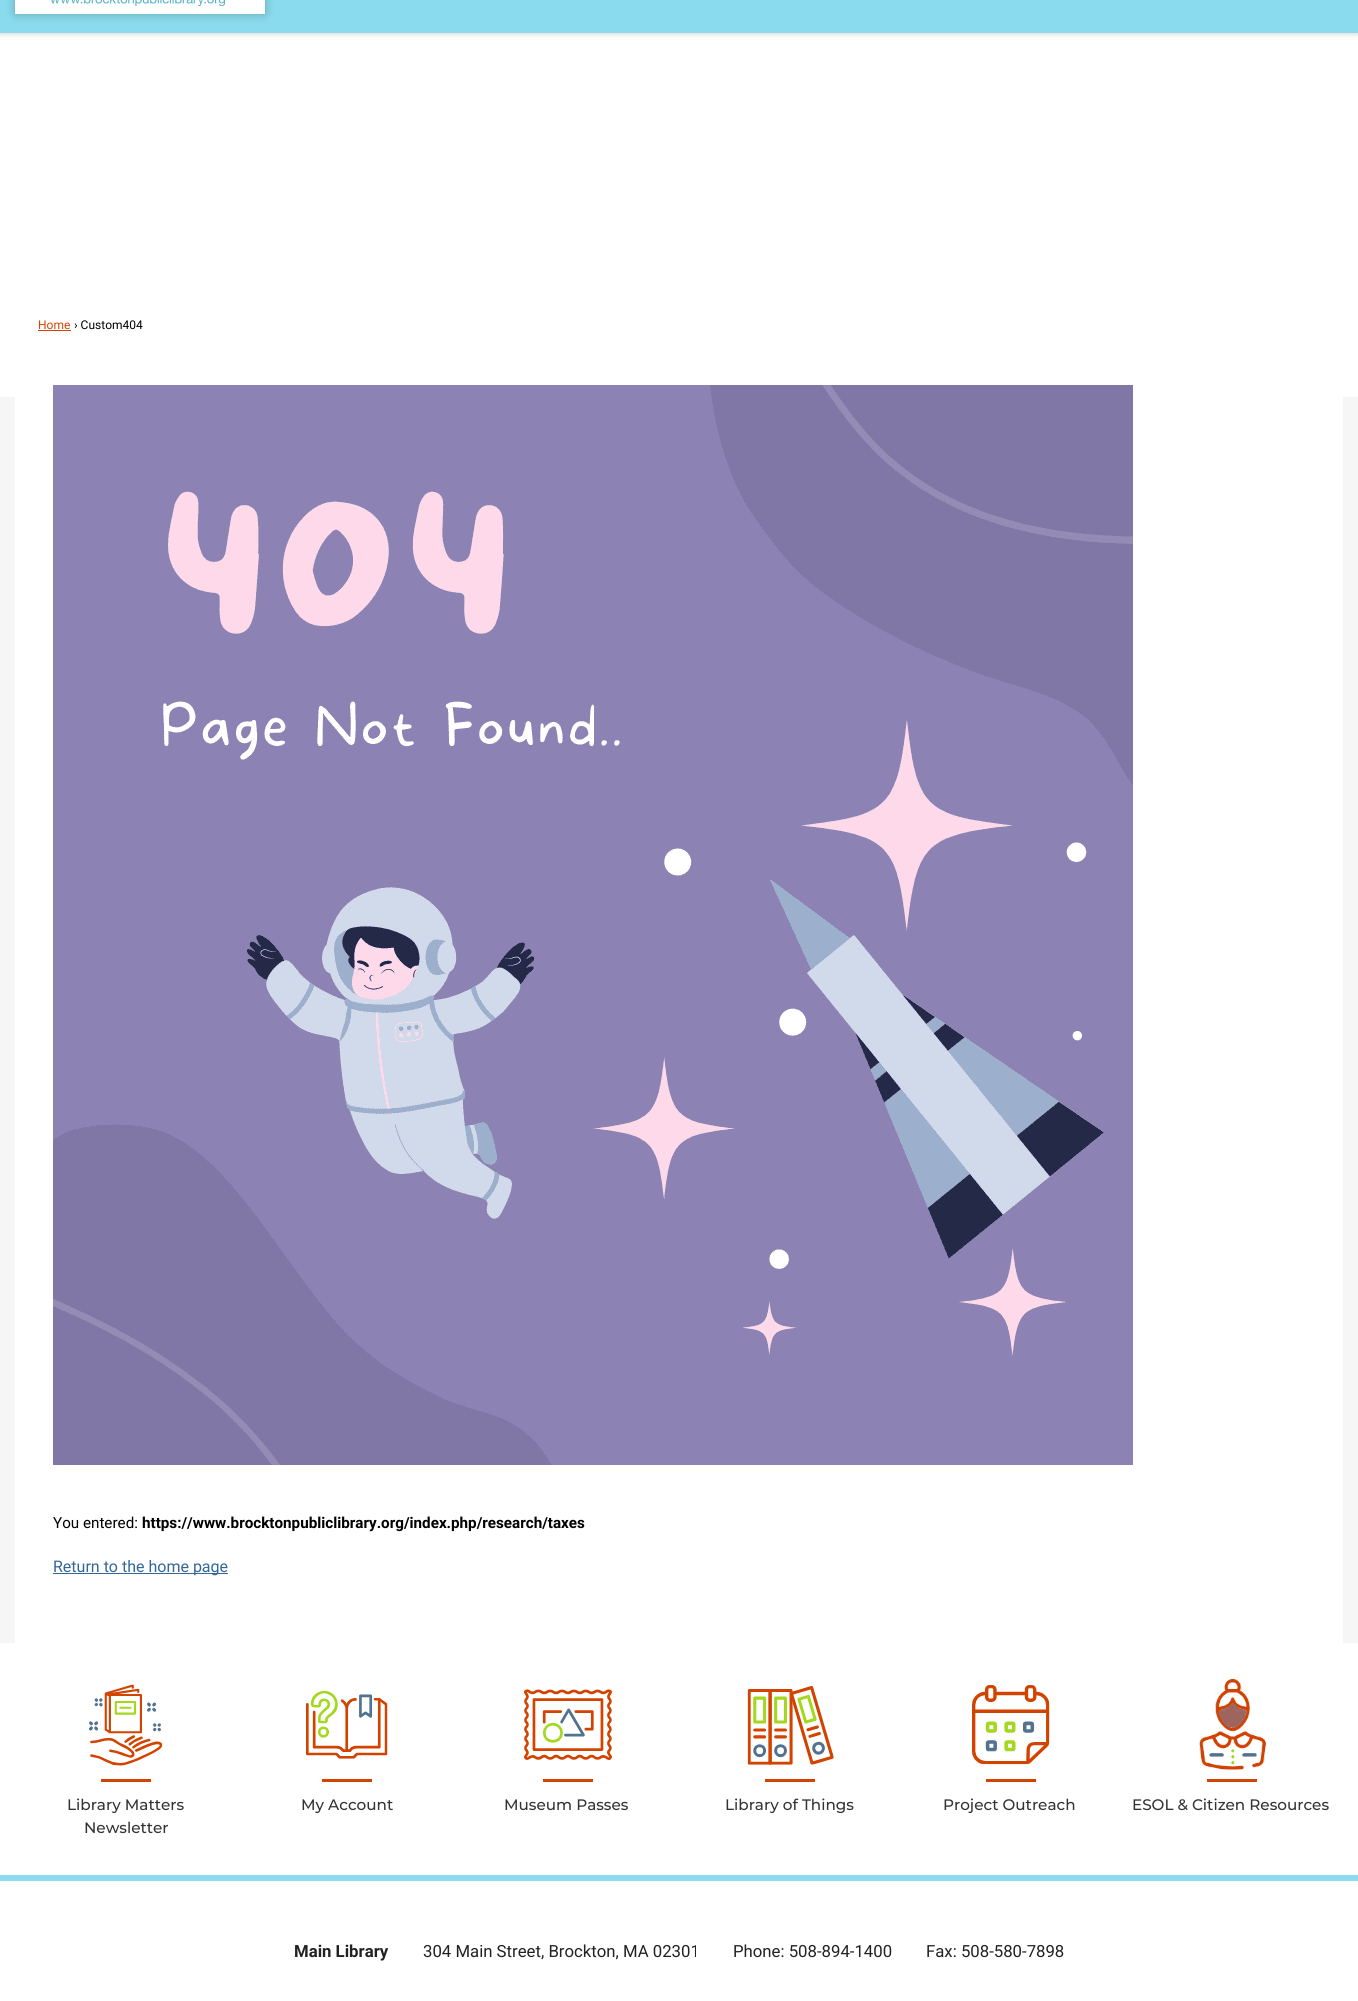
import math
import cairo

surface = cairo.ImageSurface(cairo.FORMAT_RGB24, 1358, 2001)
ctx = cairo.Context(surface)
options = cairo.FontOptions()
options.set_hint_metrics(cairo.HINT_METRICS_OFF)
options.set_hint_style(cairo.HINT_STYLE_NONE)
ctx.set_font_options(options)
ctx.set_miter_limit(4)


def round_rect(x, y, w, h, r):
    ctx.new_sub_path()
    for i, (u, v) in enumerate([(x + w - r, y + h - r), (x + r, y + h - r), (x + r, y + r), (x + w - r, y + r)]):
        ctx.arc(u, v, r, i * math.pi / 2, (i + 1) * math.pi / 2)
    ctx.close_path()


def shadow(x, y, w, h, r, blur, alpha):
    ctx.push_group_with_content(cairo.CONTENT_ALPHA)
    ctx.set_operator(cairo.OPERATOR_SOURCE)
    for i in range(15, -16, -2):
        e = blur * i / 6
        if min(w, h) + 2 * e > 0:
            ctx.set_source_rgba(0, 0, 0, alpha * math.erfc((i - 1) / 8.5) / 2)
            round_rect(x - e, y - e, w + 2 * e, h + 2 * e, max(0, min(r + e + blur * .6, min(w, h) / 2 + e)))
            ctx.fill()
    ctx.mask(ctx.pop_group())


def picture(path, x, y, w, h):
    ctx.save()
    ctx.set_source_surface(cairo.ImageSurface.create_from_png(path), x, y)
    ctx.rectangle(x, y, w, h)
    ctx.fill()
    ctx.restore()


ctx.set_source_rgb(1, 1, 1)
ctx.paint()
ctx.set_source_rgb(0, 0, 0)
shadow(0, -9, 1358, 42, 0, 3, 0.24)
ctx.set_source_rgb(0.537, 0.859, 0.929)
ctx.rectangle(0, 0, 1358, 33)
ctx.fill()
ctx.set_source_rgb(0, 0, 0)
shadow(15, -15, 250, 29, 0, 5, 0.24)
ctx.set_source_rgb(1, 1, 1)
ctx.rectangle(15, 0, 250, 14)
ctx.fill()
picture("img1.png", 51, 0, 174, 6)
ctx.set_source_rgb(0.961, 0.961, 0.961)
ctx.rectangle(0, 397, 1358, 1246)
ctx.fill()
ctx.set_source_rgb(1, 1, 1)
ctx.rectangle(15, 397, 1328, 1246)
ctx.fill()
ctx.select_font_face("Roboto")
ctx.set_font_size(12)
ctx.set_source_rgb(0.827, 0.263, 0)
ctx.move_to(38, 329)
ctx.show_text("Home")
ctx.rectangle(38, 330, 33, 1)
ctx.fill()
ctx.set_source_rgb(0, 0, 0)
ctx.move_to(74, 329)
ctx.show_text("› Custom404")
picture("img2.png", 53, 385, 1080, 1080)
ctx.set_font_size(15.2)
ctx.move_to(53, 1528)
ctx.show_text("You entered:")
ctx.select_font_face("Roboto", cairo.FONT_SLANT_NORMAL, cairo.FONT_WEIGHT_BOLD)
ctx.move_to(142, 1528)
ctx.show_text("https://www.brocktonpubliclibrary.org/index.php/research/taxes")
ctx.set_source_rgb(0.2, 0.4, 0.6)
ctx.rectangle(53, 1573, 175, 1)
ctx.fill()
ctx.select_font_face("Roboto")
ctx.set_font_size(16)
ctx.move_to(53, 1572)
ctx.show_text("Return to the home page")
picture("img3.png", 89, 1684, 74, 82)
ctx.set_source_rgb(0.827, 0.263, 0)
ctx.rectangle(101, 1779, 50, 3)
ctx.fill()
ctx.select_font_face("Montserrat Medium")
ctx.set_font_size(15.2)
ctx.set_source_rgb(0.2, 0.2, 0.2)
ctx.move_to(67, 1810)
ctx.show_text("Library Matters")
ctx.move_to(84, 1833)
ctx.show_text("Newsletter")
picture("img4.png", 306, 1690, 82, 69)
ctx.set_source_rgb(0.827, 0.263, 0)
ctx.rectangle(322, 1779, 50, 3)
ctx.fill()
ctx.set_source_rgb(0.2, 0.2, 0.2)
ctx.move_to(301, 1810)
ctx.show_text("My Account")
picture("img5.png", 524, 1689, 88, 71)
ctx.set_source_rgb(0.827, 0.263, 0)
ctx.rectangle(543, 1779, 50, 3)
ctx.fill()
ctx.set_source_rgb(0.2, 0.2, 0.2)
ctx.move_to(504, 1810)
ctx.show_text("Museum Passes")
picture("img6.png", 747, 1686, 87, 79)
ctx.set_source_rgb(0.827, 0.263, 0)
ctx.rectangle(765, 1779, 50, 3)
ctx.fill()
ctx.set_source_rgb(0.2, 0.2, 0.2)
ctx.move_to(725, 1810)
ctx.show_text("Library of Things")
picture("img7.png", 972, 1685, 78, 80)
ctx.set_source_rgb(0.827, 0.263, 0)
ctx.rectangle(986, 1779, 50, 3)
ctx.fill()
ctx.set_source_rgb(0.2, 0.2, 0.2)
ctx.move_to(943, 1810)
ctx.show_text("Project Outreach")
picture("img8.png", 1199, 1679, 67, 91)
ctx.set_source_rgb(0.827, 0.263, 0)
ctx.rectangle(1207, 1779, 50, 3)
ctx.fill()
ctx.set_source_rgb(0.2, 0.2, 0.2)
ctx.move_to(1132, 1810)
ctx.show_text("ESOL & Citizen Resources")
ctx.set_source_rgb(0.537, 0.859, 0.929)
ctx.rectangle(0, 1875, 1358, 6)
ctx.fill()
ctx.select_font_face("Roboto", cairo.FONT_SLANT_NORMAL, cairo.FONT_WEIGHT_BOLD)
ctx.set_font_size(16.75)
ctx.set_source_rgb(0.133, 0.133, 0.137)
ctx.move_to(294, 1957)
ctx.show_text("Main Library")
ctx.select_font_face("Roboto")
ctx.move_to(423, 1957)
ctx.show_text("304 Main Street, Brockton, MA 02301")
ctx.move_to(733, 1957)
ctx.show_text("Phone: 508-894-1400")
ctx.move_to(926, 1957)
ctx.show_text("Fax: 508-580-7898")
surface.write_to_png("page.png")
